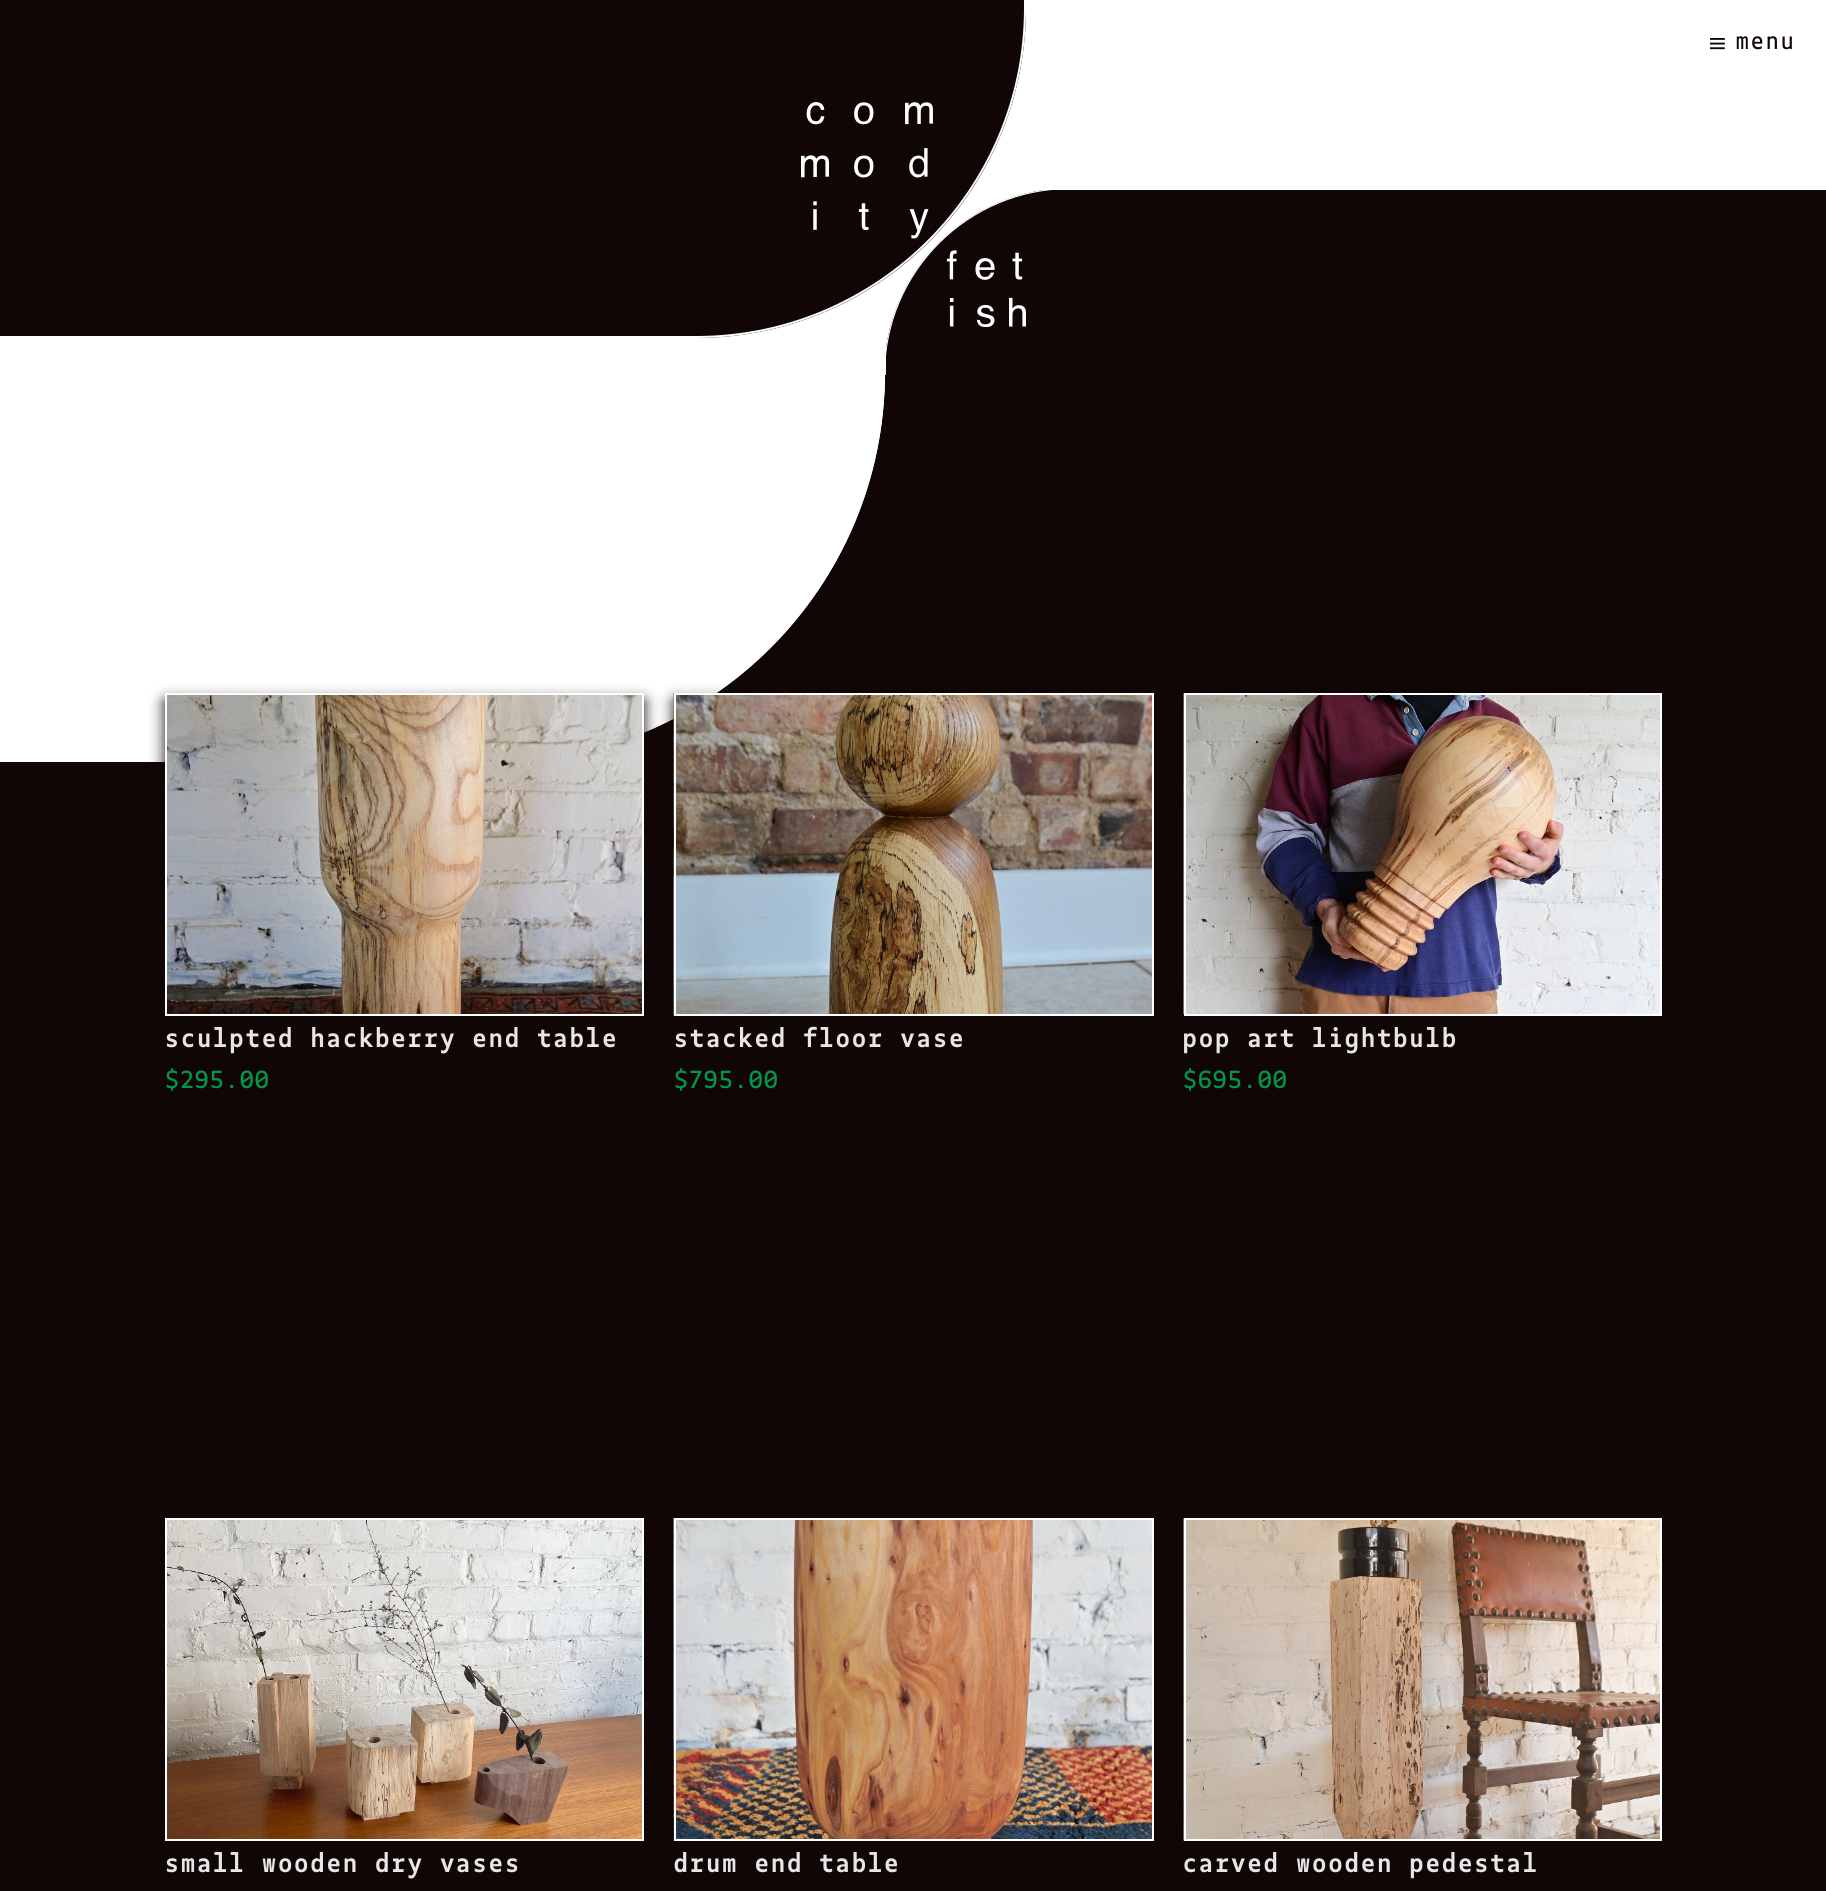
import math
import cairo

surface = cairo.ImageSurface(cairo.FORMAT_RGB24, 1826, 1891)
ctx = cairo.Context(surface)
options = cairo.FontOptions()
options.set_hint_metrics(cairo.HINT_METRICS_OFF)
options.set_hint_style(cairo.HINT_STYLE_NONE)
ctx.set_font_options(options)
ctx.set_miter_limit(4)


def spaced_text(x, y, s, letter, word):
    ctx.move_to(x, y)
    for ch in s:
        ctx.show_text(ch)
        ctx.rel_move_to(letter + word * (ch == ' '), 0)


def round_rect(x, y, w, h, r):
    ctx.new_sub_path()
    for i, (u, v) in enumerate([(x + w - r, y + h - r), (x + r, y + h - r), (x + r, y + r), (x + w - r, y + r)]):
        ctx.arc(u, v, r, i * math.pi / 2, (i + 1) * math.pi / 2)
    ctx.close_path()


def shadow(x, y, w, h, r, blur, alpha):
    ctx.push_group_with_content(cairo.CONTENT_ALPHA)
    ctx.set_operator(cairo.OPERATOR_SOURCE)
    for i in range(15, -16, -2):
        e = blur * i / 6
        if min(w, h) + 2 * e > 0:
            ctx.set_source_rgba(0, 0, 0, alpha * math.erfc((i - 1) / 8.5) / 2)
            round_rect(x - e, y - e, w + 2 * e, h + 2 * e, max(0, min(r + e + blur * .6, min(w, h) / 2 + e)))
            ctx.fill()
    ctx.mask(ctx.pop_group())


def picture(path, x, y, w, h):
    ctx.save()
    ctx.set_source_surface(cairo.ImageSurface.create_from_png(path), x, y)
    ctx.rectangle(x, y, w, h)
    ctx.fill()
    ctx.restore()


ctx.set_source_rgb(0.067, 0.027, 0.027)
ctx.paint()
ctx.set_source_rgb(1, 1, 1)
ctx.rectangle(0, 0, 1826, 372)
ctx.fill()
ctx.new_path()
ctx.move_to(0, 372)
ctx.line_to(885, 372)
ctx.curve_to(885, 587.5, 710.5, 762, 495, 762)
ctx.line_to(0, 762)
ctx.close_path()
ctx.fill()
ctx.set_fill_rule(cairo.FILL_RULE_EVEN_ODD)
ctx.new_path()
ctx.move_to(0, 372)
ctx.line_to(885, 372)
ctx.curve_to(885, 587, 710, 762, 495, 762)
ctx.line_to(0, 762)
ctx.close_path()
ctx.move_to(0, 372)
ctx.line_to(884, 372)
ctx.curve_to(884, 587, 710, 760, 495, 760)
ctx.line_to(0, 760)
ctx.close_path()
ctx.fill()
ctx.set_source_rgb(0.067, 0.027, 0.027)
ctx.new_path()
ctx.move_to(1071, 188)
ctx.line_to(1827, 188)
ctx.line_to(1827, 375)
ctx.line_to(884, 375)
ctx.curve_to(884, 271.5, 967.5, 188, 1071, 188)
ctx.close_path()
ctx.fill()
ctx.set_source_rgb(1, 1, 1)
ctx.new_path()
ctx.move_to(1071, 188)
ctx.line_to(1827, 188)
ctx.line_to(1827, 375)
ctx.line_to(884, 375)
ctx.curve_to(884, 271, 967, 188, 1071, 188)
ctx.close_path()
ctx.move_to(1071, 189)
ctx.line_to(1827, 189)
ctx.line_to(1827, 375)
ctx.line_to(885, 375)
ctx.curve_to(885, 272, 968, 189, 1071, 189)
ctx.close_path()
ctx.fill()
ctx.set_source_rgb(0.067, 0.027, 0.027)
ctx.new_path()
ctx.move_to(0, 0)
ctx.line_to(1026, 0)
ctx.line_to(1026, 8)
ctx.curve_to(1026, 190.5, 878.5, 338, 696, 338)
ctx.line_to(0, 338)
ctx.close_path()
ctx.fill()
picture("img1.png", 801, 102, 225, 225)
ctx.set_source_rgb(1, 1, 1)
ctx.new_path()
ctx.move_to(0, 0)
ctx.line_to(1026, 0)
ctx.line_to(1026, 8)
ctx.curve_to(1026, 190, 878, 338, 696, 338)
ctx.line_to(0, 338)
ctx.close_path()
ctx.move_to(0, 0)
ctx.line_to(1024, 0)
ctx.line_to(1024, 8)
ctx.curve_to(1024, 189, 877, 336, 696, 336)
ctx.line_to(0, 336)
ctx.close_path()
ctx.fill()
ctx.rectangle(1044, 188, 782, 2)
ctx.fill()
ctx.rectangle(884, 348, 2, 27)
ctx.fill()
ctx.new_path()
ctx.move_to(0, 374)
ctx.line_to(885, 374)
ctx.curve_to(885, 498, 784, 598, 660, 598)
ctx.line_to(0, 598)
ctx.close_path()
ctx.move_to(0, 374)
ctx.line_to(884, 374)
ctx.curve_to(884, 497, 783, 597, 660, 597)
ctx.line_to(0, 597)
ctx.close_path()
ctx.fill()
picture("img2.png", 1710, 38, 15, 12)
ctx.select_font_face("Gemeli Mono")
ctx.set_font_size(25)
ctx.set_source_rgb(0.067, 0.027, 0.027)
spaced_text(1736, 49, "menu", 2.5, 0)
ctx.set_source_rgb(0.067, 0.027, 0.027)
shadow(165, 701, 479, 322, 0, 7.5, 1)
picture("img3.png", 167, 695, 475, 319)
ctx.rectangle(166, 694, 477, 321)
ctx.set_source_rgb(1, 1, 1)
ctx.stroke()
ctx.select_font_face("Gemeli Mono", cairo.FONT_SLANT_NORMAL, cairo.FONT_WEIGHT_BOLD)
ctx.set_font_size(27)
ctx.set_source_rgb(0.906, 0.902, 0.902)
spaced_text(165, 1047, "sculpted hackberry end table", 2.7, 0)
ctx.select_font_face("Gemeli Mono")
ctx.set_source_rgb(0.008, 0.588, 0.29)
spaced_text(165, 1088, "$295.00", 1.5, 0)
ctx.set_source_rgb(0.067, 0.027, 0.027)
shadow(674, 701, 480, 322, 0, 7.5, 1)
picture("img4.png", 673, 693, 479, 323)
ctx.rectangle(675, 694, 478, 321)
ctx.set_source_rgb(1, 1, 1)
ctx.stroke()
ctx.select_font_face("Gemeli Mono", cairo.FONT_SLANT_NORMAL, cairo.FONT_WEIGHT_BOLD)
ctx.set_source_rgb(0.906, 0.902, 0.902)
spaced_text(674, 1047, "stacked floor vase", 2.7, 0)
ctx.select_font_face("Gemeli Mono")
ctx.set_source_rgb(0.008, 0.588, 0.29)
spaced_text(674, 1088, "$795.00", 1.5, 0)
picture("img5.png", 1183, 693, 477, 321)
ctx.rectangle(1185, 694, 476, 321)
ctx.set_source_rgb(1, 1, 1)
ctx.stroke()
ctx.select_font_face("Gemeli Mono", cairo.FONT_SLANT_NORMAL, cairo.FONT_WEIGHT_BOLD)
ctx.set_source_rgb(0.906, 0.902, 0.902)
spaced_text(1183, 1047, "pop art lightbulb", 2.7, 0)
ctx.select_font_face("Gemeli Mono")
ctx.set_source_rgb(0.008, 0.588, 0.29)
spaced_text(1183, 1088, "$695.00", 1.5, 0)
picture("img6.png", 167, 1520, 475, 319)
ctx.rectangle(166, 1519, 477, 321)
ctx.set_source_rgb(1, 1, 1)
ctx.stroke()
ctx.select_font_face("Gemeli Mono", cairo.FONT_SLANT_NORMAL, cairo.FONT_WEIGHT_BOLD)
ctx.set_source_rgb(0.906, 0.902, 0.902)
spaced_text(165, 1872, "small wooden dry vases", 2.7, 0)
picture("img7.png", 673, 1518, 479, 323)
ctx.rectangle(675, 1519, 478, 321)
ctx.set_source_rgb(1, 1, 1)
ctx.stroke()
ctx.set_source_rgb(0.906, 0.902, 0.902)
spaced_text(674, 1872, "drum end table", 2.7, 0)
picture("img8.png", 1183, 1518, 477, 323)
ctx.rectangle(1185, 1519, 476, 321)
ctx.set_source_rgb(1, 1, 1)
ctx.stroke()
ctx.set_source_rgb(0.906, 0.902, 0.902)
spaced_text(1183, 1872, "carved wooden pedestal", 2.7, 0)
surface.write_to_png("page.png")
